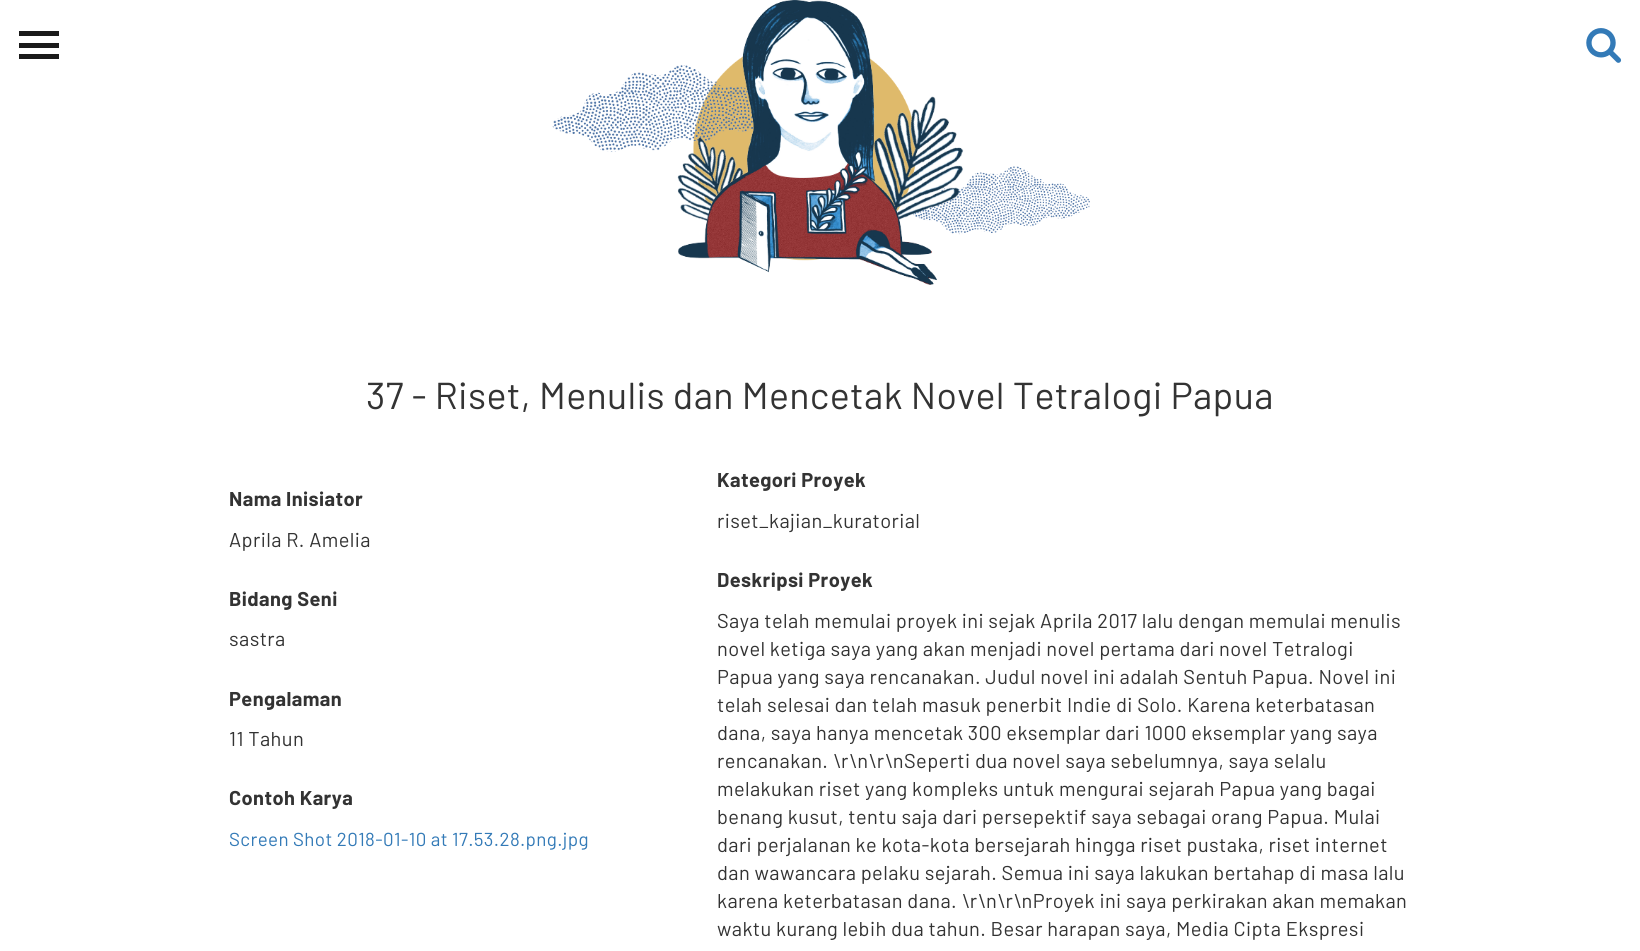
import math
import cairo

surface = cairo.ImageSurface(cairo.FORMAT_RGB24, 1640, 951)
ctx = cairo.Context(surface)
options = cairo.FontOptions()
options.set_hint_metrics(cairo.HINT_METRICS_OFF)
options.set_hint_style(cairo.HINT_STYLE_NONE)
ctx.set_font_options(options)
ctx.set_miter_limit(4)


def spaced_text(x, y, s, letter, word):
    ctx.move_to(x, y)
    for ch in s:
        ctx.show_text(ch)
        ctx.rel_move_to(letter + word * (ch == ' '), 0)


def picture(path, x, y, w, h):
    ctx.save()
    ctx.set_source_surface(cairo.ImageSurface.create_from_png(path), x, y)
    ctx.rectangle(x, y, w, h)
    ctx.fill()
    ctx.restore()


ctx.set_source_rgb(1, 1, 1)
ctx.paint()
picture("img1.png", 552, 0, 538, 285)
ctx.set_source_rgb(0.102, 0.102, 0.102)
ctx.rectangle(19, 31, 40, 5)
ctx.fill()
ctx.rectangle(19, 43, 40, 5)
ctx.fill()
ctx.rectangle(19, 54, 40, 5)
ctx.fill()
picture("img2.png", 1586, 28, 36, 35)
ctx.select_font_face("Barlow")
ctx.set_font_size(37.5)
ctx.set_source_rgb(0.2, 0.2, 0.2)
spaced_text(366, 409, "37 - Riset, Menulis dan Mencetak Novel Tetralogi Papua", 0.38, 0)
ctx.select_font_face("Barlow", cairo.FONT_SLANT_NORMAL, cairo.FONT_WEIGHT_BOLD)
ctx.set_font_size(20)
spaced_text(229, 506, "Nama Inisiator", 0.4, 0)
ctx.select_font_face("Barlow")
spaced_text(229, 547, "Aprila R. Amelia", 0.4, 0)
ctx.select_font_face("Barlow", cairo.FONT_SLANT_NORMAL, cairo.FONT_WEIGHT_BOLD)
spaced_text(229, 606, "Bidang Seni", 0.4, 0)
ctx.select_font_face("Barlow")
spaced_text(229, 646, "sastra", 0.4, 0)
ctx.select_font_face("Barlow", cairo.FONT_SLANT_NORMAL, cairo.FONT_WEIGHT_BOLD)
spaced_text(229, 706, "Pengalaman", 0.4, 0)
ctx.select_font_face("Barlow")
spaced_text(229, 746, "11 Tahun", 0.4, 0)
ctx.select_font_face("Barlow", cairo.FONT_SLANT_NORMAL, cairo.FONT_WEIGHT_BOLD)
spaced_text(229, 805, "Contoh Karya", 0.4, 0)
ctx.select_font_face("Barlow")
ctx.set_font_size(18.75)
ctx.set_source_rgb(0.2, 0.478, 0.718)
spaced_text(229, 846, "Screen Shot 2018-01-10 at 17.53.28.png.jpg", 0.38, 0)
ctx.select_font_face("Barlow", cairo.FONT_SLANT_NORMAL, cairo.FONT_WEIGHT_BOLD)
ctx.set_font_size(20)
ctx.set_source_rgb(0.2, 0.2, 0.2)
spaced_text(717, 487, "Kategori Proyek", 0.4, 0)
ctx.select_font_face("Barlow")
spaced_text(717, 528, "riset_kajian_kuratorial", 0.4, 0)
ctx.select_font_face("Barlow", cairo.FONT_SLANT_NORMAL, cairo.FONT_WEIGHT_BOLD)
spaced_text(717, 587, "Deskripsi Proyek", 0.4, 0)
ctx.select_font_face("Barlow")
spaced_text(717, 628, "Saya telah memulai proyek ini sejak Aprila 2017 lalu dengan memulai menulis", 0.4, 0)
spaced_text(717, 656, "novel ketiga saya yang akan menjadi novel pertama dari novel Tetralogi", 0.4, 0)
spaced_text(717, 684, "Papua yang saya rencanakan. Judul novel ini adalah Sentuh Papua. Novel ini", 0.4, 0)
spaced_text(717, 712, "telah selesai dan telah masuk penerbit Indie di Solo. Karena keterbatasan", 0.4, 0)
spaced_text(717, 740, "dana, saya hanya mencetak 300 eksemplar dari 1000 eksemplar yang saya", 0.4, 0)
spaced_text(717, 768, "rencanakan. \\r\\n\\r\\nSeperti dua novel saya sebelumnya, saya selalu", 0.4, 0)
spaced_text(717, 796, "melakukan riset yang kompleks untuk mengurai sejarah Papua yang bagai", 0.4, 0)
spaced_text(717, 824, "benang kusut, tentu saja dari persepektif saya sebagai orang Papua. Mulai", 0.4, 0)
spaced_text(717, 852, "dari perjalanan ke kota-kota bersejarah hingga riset pustaka, riset internet", 0.4, 0)
spaced_text(717, 880, "dan wawancara pelaku sejarah. Semua ini saya lakukan bertahap di masa lalu", 0.4, 0)
spaced_text(717, 908, "karena keterbatasan dana. \\r\\n\\r\\nProyek ini saya perkirakan akan memakan", 0.4, 0)
spaced_text(717, 936, "waktu kurang lebih dua tahun. Besar harapan saya, Media Cipta Ekspresi", 0.4, 0)
surface.write_to_png("page.png")
